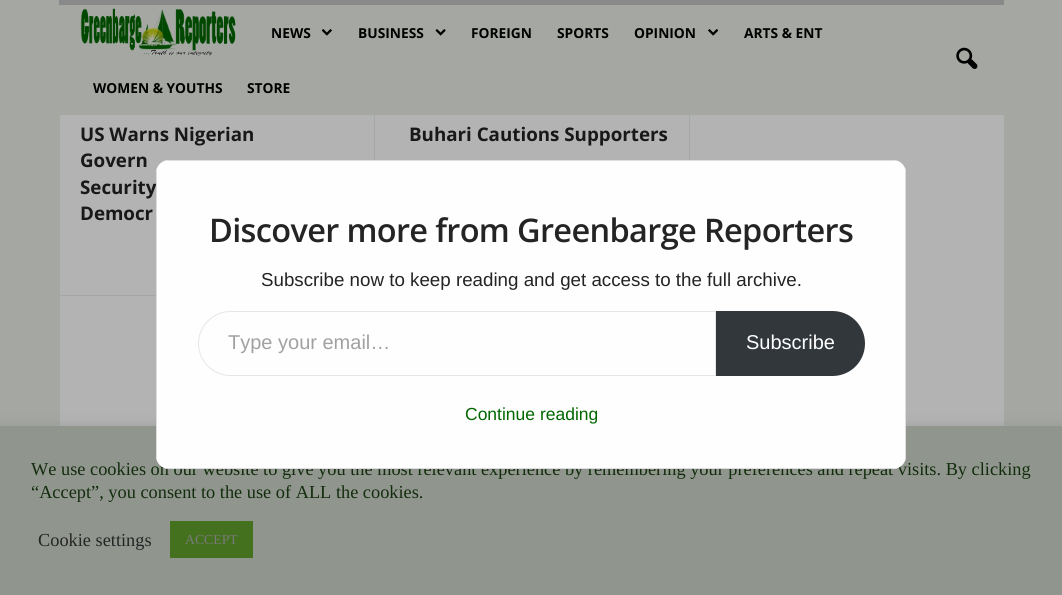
import math
import cairo

surface = cairo.ImageSurface(cairo.FORMAT_RGB24, 1062, 595)
ctx = cairo.Context(surface)
options = cairo.FontOptions()
options.set_hint_metrics(cairo.HINT_METRICS_OFF)
options.set_hint_style(cairo.HINT_STYLE_NONE)
ctx.set_font_options(options)
ctx.set_miter_limit(4)


def spaced_text(x, y, s, letter, word):
    ctx.move_to(x, y)
    for ch in s:
        ctx.show_text(ch)
        ctx.rel_move_to(letter + word * (ch == ' '), 0)


def round_rect(x, y, w, h, r):
    ctx.new_sub_path()
    for i, (u, v) in enumerate([(x + w - r, y + h - r), (x + r, y + h - r), (x + r, y + r), (x + w - r, y + r)]):
        ctx.arc(u, v, r, i * math.pi / 2, (i + 1) * math.pi / 2)
    ctx.close_path()


def shadow(x, y, w, h, r, blur, alpha):
    ctx.push_group_with_content(cairo.CONTENT_ALPHA)
    ctx.set_operator(cairo.OPERATOR_SOURCE)
    for i in range(15, -16, -2):
        e = blur * i / 6
        if min(w, h) + 2 * e > 0:
            ctx.set_source_rgba(0, 0, 0, alpha * math.erfc((i - 1) / 8.5) / 2)
            round_rect(x - e, y - e, w + 2 * e, h + 2 * e, max(0, min(r + e + blur * .6, min(w, h) / 2 + e)))
            ctx.fill()
    ctx.mask(ctx.pop_group())


def picture(path, x, y, w, h):
    ctx.save()
    ctx.set_source_surface(cairo.ImageSurface.create_from_png(path), x, y)
    ctx.rectangle(x, y, w, h)
    ctx.fill()
    ctx.restore()


ctx.set_source_rgb(0.647, 0.659, 0.635)
ctx.paint()
ctx.set_source_rgb(0.537, 0.537, 0.537)
ctx.rectangle(59, 0, 945, 5)
ctx.fill()
picture("img1.png", 80, 8, 156, 48)
ctx.select_font_face("Open Sans", cairo.FONT_SLANT_NORMAL, cairo.FONT_WEIGHT_BOLD)
ctx.set_font_size(13.75)
ctx.set_source_rgb(0, 0, 0)
ctx.move_to(271, 38)
ctx.show_text("NEWS")
picture("img2.png", 321, 29, 11, 7)
ctx.move_to(358, 38)
ctx.show_text("BUSINESS")
picture("img3.png", 435, 29, 11, 7)
ctx.move_to(471, 38)
ctx.show_text("FOREIGN")
ctx.move_to(557, 38)
ctx.show_text("SPORTS")
ctx.move_to(634, 38)
ctx.show_text("OPINION")
picture("img4.png", 708, 29, 11, 7)
ctx.move_to(744, 38)
ctx.show_text("ARTS & ENT")
ctx.move_to(93, 93)
ctx.show_text("WOMEN & YOUTHS")
ctx.move_to(247, 93)
ctx.show_text("STORE")
picture("img5.png", 956, 47, 22, 22)
ctx.set_source_rgb(0.702, 0.702, 0.702)
ctx.rectangle(60, 115, 944, 311)
ctx.fill()
ctx.set_font_size(18.75)
ctx.set_source_rgb(0.094, 0.094, 0.094)
ctx.move_to(80, 141)
ctx.show_text("US Warns Nigerian")
ctx.move_to(80, 167)
ctx.show_text("Govern")
ctx.move_to(80, 194)
ctx.show_text("Security")
ctx.move_to(80, 220)
ctx.show_text("Democr")
ctx.set_source_rgb(0.647, 0.659, 0.635)
ctx.rectangle(374, 115, 1, 45)
ctx.fill()
ctx.set_source_rgb(0.094, 0.094, 0.094)
ctx.move_to(409, 141)
ctx.show_text("Buhari Cautions Supporters")
ctx.set_source_rgb(0.647, 0.659, 0.635)
ctx.rectangle(59, 295, 97, 1)
ctx.fill()
ctx.rectangle(689, 115, 1, 45)
ctx.fill()
ctx.set_source_rgb(0.471, 0.471, 0.471)
shadow(0, 425, 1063, 169, 0, 6, 0.3)
ctx.set_source_rgb(0.565, 0.588, 0.557)
ctx.rectangle(0, 426, 1062, 169)
ctx.fill()
ctx.select_font_face("Liberation Serif")
ctx.set_font_size(18.33)
ctx.set_source_rgb(0.075, 0.173, 0.051)
ctx.move_to(31, 475)
ctx.show_text("We use cookies on our website to give you the most relevant experience by remembering your preferences and repeat visits. By clicking")
ctx.set_source_rgb(0.996, 0.996, 0.996)
round_rect(156, 160, 750, 309, 13)
ctx.fill()
ctx.set_source_rgb(0.867, 0.867, 0.867)
ctx.set_fill_rule(cairo.FILL_RULE_EVEN_ODD)
ctx.new_path()
ctx.move_to(156, 173)
ctx.line_to(156, 456)
ctx.line_to(157, 461)
ctx.line_to(157, 168)
ctx.close_path()
ctx.move_to(169, 160)
ctx.line_to(164, 161)
ctx.line_to(898, 161)
ctx.line_to(893, 160)
ctx.close_path()
ctx.move_to(906, 173)
ctx.line_to(905, 168)
ctx.line_to(905, 461)
ctx.line_to(906, 456)
ctx.close_path()
ctx.move_to(893, 469)
ctx.line_to(898, 468)
ctx.line_to(164, 468)
ctx.line_to(169, 469)
ctx.close_path()
ctx.fill()
ctx.select_font_face("Open Sans SemiBold")
ctx.set_font_size(32.5)
ctx.set_source_rgb(0.141, 0.141, 0.141)
spaced_text(209, 242, "Discover more from Greenbarge Reporters", -0.65, 0)
ctx.select_font_face("Liberation Sans")
ctx.set_font_size(18.75)
ctx.move_to(261, 286)
ctx.show_text("Subscribe now to keep reading and get access to the full archive.")
ctx.new_path()
ctx.move_to(230.5, 311.5)
ctx.line_to(715.5, 311.5)
ctx.line_to(715.5, 375.5)
ctx.line_to(230.5, 375.5)
ctx.curve_to(213, 375.5, 198.5, 361, 198.5, 343.5)
ctx.curve_to(198.5, 326, 213, 311.5, 230.5, 311.5)
ctx.close_path()
ctx.set_source_rgb(0.902, 0.902, 0.902)
ctx.set_line_width(1)
ctx.stroke()
ctx.set_font_size(20)
ctx.set_source_rgb(0.631, 0.631, 0.631)
ctx.move_to(228, 349)
ctx.show_text("Type your email…")
ctx.set_source_rgb(0.196, 0.216, 0.235)
ctx.new_path()
ctx.move_to(716, 311)
ctx.line_to(832.5, 311)
ctx.curve_to(850.5, 311, 865, 325.5, 865, 343.5)
ctx.curve_to(865, 361.5, 850.5, 376, 832.5, 376)
ctx.line_to(716, 376)
ctx.close_path()
ctx.fill()
ctx.set_source_rgb(1, 1, 1)
ctx.move_to(746, 349)
ctx.show_text("Subscribe")
ctx.set_font_size(17.5)
ctx.set_source_rgb(0, 0.4, 0)
ctx.move_to(465, 420)
ctx.show_text("Continue reading")
ctx.select_font_face("Liberation Serif")
ctx.set_font_size(18.33)
ctx.set_source_rgb(0.075, 0.173, 0.051)
ctx.move_to(31, 498)
ctx.show_text("“Accept”, you consent to the use of ALL the cookies.")
ctx.set_source_rgb(0.141, 0.141, 0.141)
ctx.move_to(38, 546)
ctx.show_text("Cookie settings")
ctx.set_source_rgb(0.267, 0.443, 0.114)
ctx.rectangle(170, 521, 83, 37)
ctx.fill()
ctx.set_font_size(13.75)
ctx.set_source_rgb(0.475, 0.475, 0.475)
ctx.move_to(185, 544)
ctx.show_text("ACCEPT")
surface.write_to_png("page.png")
